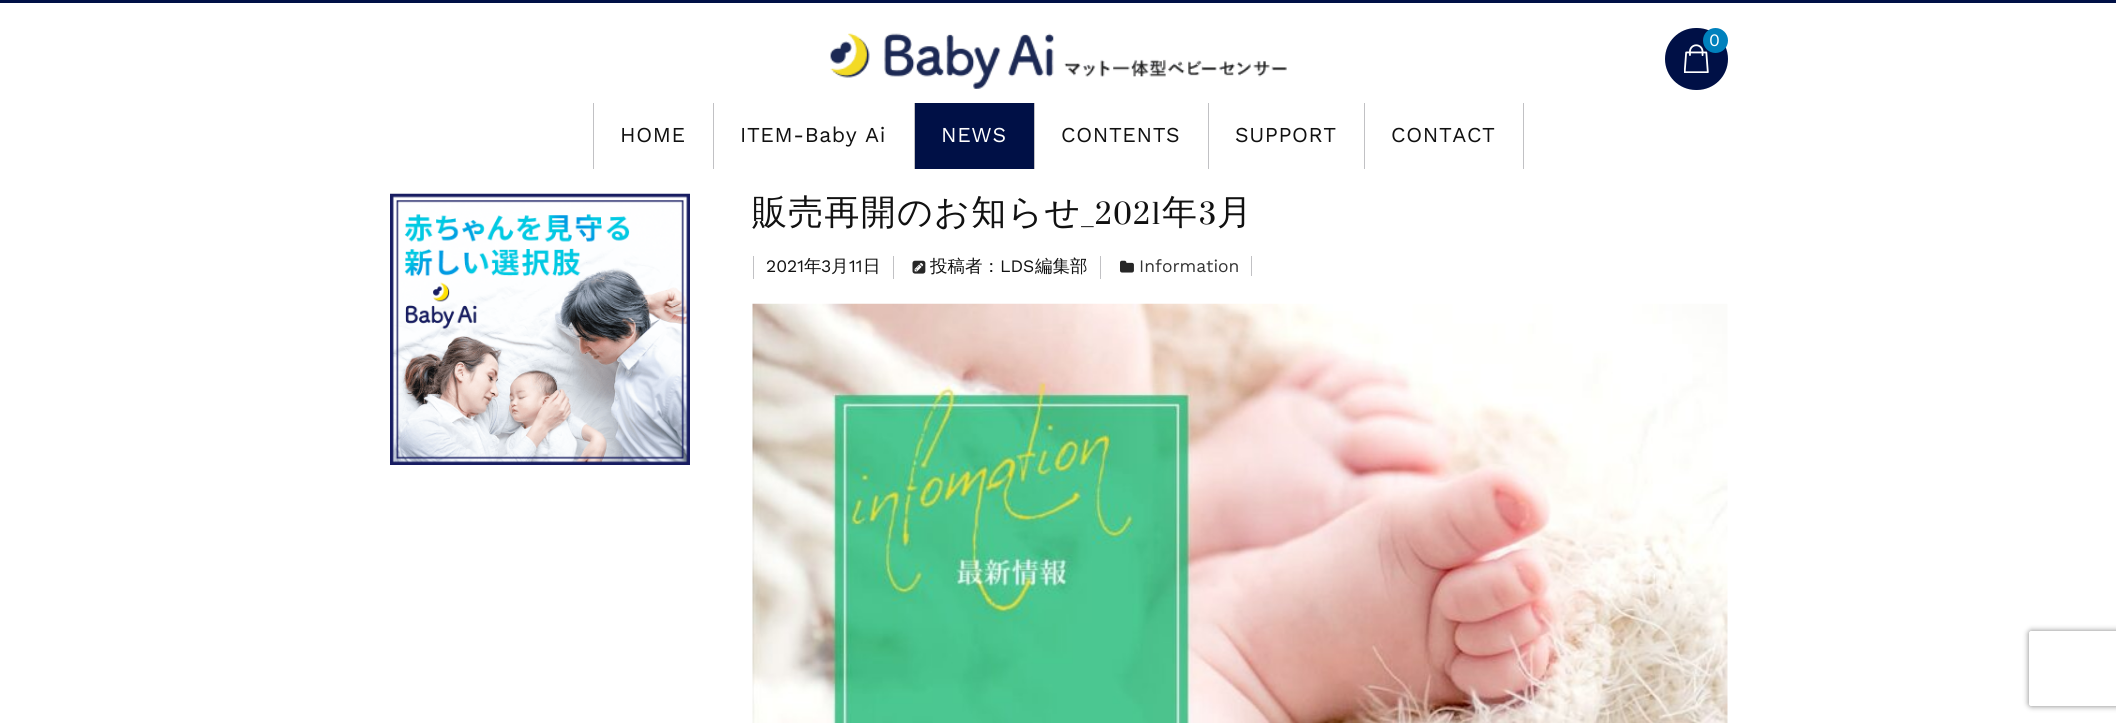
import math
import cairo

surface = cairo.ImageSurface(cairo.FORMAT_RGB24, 2116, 723)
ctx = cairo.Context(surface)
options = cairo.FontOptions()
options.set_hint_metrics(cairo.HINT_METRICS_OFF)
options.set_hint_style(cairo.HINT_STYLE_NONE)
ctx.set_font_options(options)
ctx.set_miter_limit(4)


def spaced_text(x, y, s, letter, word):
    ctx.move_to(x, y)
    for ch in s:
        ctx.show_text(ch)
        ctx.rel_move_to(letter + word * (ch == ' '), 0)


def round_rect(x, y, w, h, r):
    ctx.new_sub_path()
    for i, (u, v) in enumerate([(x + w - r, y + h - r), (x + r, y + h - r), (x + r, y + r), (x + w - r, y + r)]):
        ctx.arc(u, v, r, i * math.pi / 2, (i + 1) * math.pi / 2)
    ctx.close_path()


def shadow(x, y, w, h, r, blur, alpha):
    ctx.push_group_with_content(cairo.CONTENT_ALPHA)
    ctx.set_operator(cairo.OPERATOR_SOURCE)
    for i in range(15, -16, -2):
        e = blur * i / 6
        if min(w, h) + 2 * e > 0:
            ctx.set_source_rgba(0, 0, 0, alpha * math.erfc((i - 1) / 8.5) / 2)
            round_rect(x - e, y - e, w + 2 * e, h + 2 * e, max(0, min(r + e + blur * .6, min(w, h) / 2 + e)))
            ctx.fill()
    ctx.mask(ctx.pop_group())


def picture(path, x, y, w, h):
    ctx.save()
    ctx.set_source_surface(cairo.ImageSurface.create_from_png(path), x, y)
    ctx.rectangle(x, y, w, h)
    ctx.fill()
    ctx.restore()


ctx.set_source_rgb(1, 1, 1)
ctx.paint()
ctx.set_source_rgb(0, 0.063, 0.275)
ctx.rectangle(0, 0, 2116, 3)
ctx.fill()
picture("img1.png", 830, 33, 457, 56)
round_rect(1665, 28, 63, 62, 31)
ctx.fill()
picture("img2.png", 1684, 44, 25, 29)
ctx.set_source_rgb(0, 0.506, 0.741)
ctx.arc(1715.5, 40.5, 12.5, 0, 2 * math.pi)
ctx.fill()
ctx.select_font_face("Work Sans")
ctx.set_font_size(17.5)
ctx.set_source_rgb(1, 1, 1)
ctx.move_to(1709, 46)
ctx.show_text("0")
ctx.set_source_rgb(0.757, 0.757, 0.769)
ctx.rectangle(713, 103, 1, 66)
ctx.fill()
ctx.rectangle(593, 103, 1, 66)
ctx.fill()
ctx.set_font_size(21.25)
ctx.set_source_rgb(0.067, 0.067, 0.067)
spaced_text(620, 142, "HOME", 0.6, 0)
ctx.set_source_rgb(0.757, 0.757, 0.769)
ctx.rectangle(914, 103, 1, 66)
ctx.fill()
ctx.set_source_rgb(0.067, 0.067, 0.067)
spaced_text(740, 142, "ITEM-Baby Ai", 0.6, 0)
ctx.set_source_rgb(0.757, 0.757, 0.769)
ctx.rectangle(1034, 103, 1, 66)
ctx.fill()
ctx.set_source_rgb(0, 0.063, 0.275)
ctx.rectangle(915, 103, 119, 66)
ctx.fill()
ctx.set_source_rgb(1, 1, 1)
spaced_text(941, 142, "NEWS", 0.6, 0)
ctx.set_source_rgb(0.757, 0.757, 0.769)
ctx.rectangle(1208, 103, 1, 66)
ctx.fill()
ctx.set_source_rgb(0.067, 0.067, 0.067)
spaced_text(1061, 142, "CONTENTS", 0.6, 0)
ctx.set_source_rgb(0.757, 0.757, 0.769)
ctx.rectangle(1364, 103, 1, 66)
ctx.fill()
ctx.set_source_rgb(0.067, 0.067, 0.067)
spaced_text(1235, 142, "SUPPORT", 0.6, 0)
ctx.set_source_rgb(0.757, 0.757, 0.769)
ctx.rectangle(1523, 103, 1, 66)
ctx.fill()
ctx.set_source_rgb(0.067, 0.067, 0.067)
spaced_text(1391, 142, "CONTACT", 0.6, 0)
picture("img3.png", 390, 193, 300, 272)
ctx.select_font_face("WenQuanYi Zen Hei Medium")
ctx.set_font_size(35)
spaced_text(752, 224, "販売再開のお知らせ", 1.25, 0)
ctx.select_font_face("Suranna")
spaced_text(1081, 224, "_2021", 1.25, 0)
ctx.select_font_face("WenQuanYi Zen Hei Medium")
spaced_text(1162, 224, "年", 1.25, 0)
ctx.select_font_face("Suranna")
spaced_text(1199, 224, "3", 1.25, 0)
ctx.select_font_face("WenQuanYi Zen Hei Medium")
spaced_text(1217, 224, "月", 1.25, 0)
ctx.set_source_rgb(0.757, 0.757, 0.769)
ctx.rectangle(893, 256, 1, 23)
ctx.fill()
ctx.rectangle(753, 256, 1, 23)
ctx.fill()
ctx.select_font_face("Work Sans")
ctx.set_font_size(17.5)
ctx.set_source_rgb(0.067, 0.067, 0.067)
ctx.move_to(766, 272)
ctx.show_text("2021")
ctx.select_font_face("WenQuanYi Zen Hei Medium")
ctx.move_to(804, 272)
ctx.show_text("年")
ctx.select_font_face("Work Sans")
ctx.move_to(821, 272)
ctx.show_text("3")
ctx.select_font_face("WenQuanYi Zen Hei Medium")
ctx.move_to(831, 272)
ctx.show_text("月")
ctx.select_font_face("Work Sans")
ctx.move_to(849, 272)
ctx.show_text("11")
ctx.select_font_face("WenQuanYi Zen Hei Medium")
ctx.move_to(863, 272)
ctx.show_text("日")
ctx.set_source_rgb(0.757, 0.757, 0.769)
ctx.rectangle(1100, 256, 1, 23)
ctx.fill()
picture("img4.png", 912, 260, 14, 14)
ctx.set_source_rgb(0.067, 0.067, 0.067)
ctx.move_to(930, 272)
ctx.show_text("投稿者：")
ctx.select_font_face("Work Sans")
ctx.move_to(1000, 272)
ctx.show_text("LDS")
ctx.select_font_face("WenQuanYi Zen Hei Medium")
ctx.move_to(1035, 272)
ctx.show_text("編集部")
ctx.set_source_rgb(0.757, 0.757, 0.769)
ctx.rectangle(1251, 256, 1, 20)
ctx.fill()
picture("img5.png", 1120, 260, 14, 13)
ctx.select_font_face("Work Sans")
ctx.set_source_rgb(0.2, 0.2, 0.2)
ctx.move_to(1139, 272)
ctx.show_text("Information")
picture("img6.png", 752, 303, 976, 420)
ctx.save()
ctx.set_fill_rule(cairo.FILL_RULE_EVEN_ODD)
ctx.new_path()
ctx.move_to(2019, 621)
ctx.line_to(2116, 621)
ctx.line_to(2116, 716)
ctx.line_to(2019, 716)
ctx.close_path()
ctx.move_to(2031.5, 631)
ctx.line_to(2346.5, 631)
ctx.curve_to(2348, 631, 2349, 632, 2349, 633.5)
ctx.line_to(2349, 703.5)
ctx.curve_to(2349, 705, 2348, 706, 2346.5, 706)
ctx.line_to(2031.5, 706)
ctx.curve_to(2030, 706, 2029, 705, 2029, 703.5)
ctx.line_to(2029, 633.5)
ctx.curve_to(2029, 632, 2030, 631, 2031.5, 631)
ctx.close_path()
ctx.clip()
ctx.set_source_rgb(0.502, 0.502, 0.502)
shadow(2029, 631, 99, 75, 2.5, 3, 1)
ctx.restore()
surface.write_to_png("page.png")
